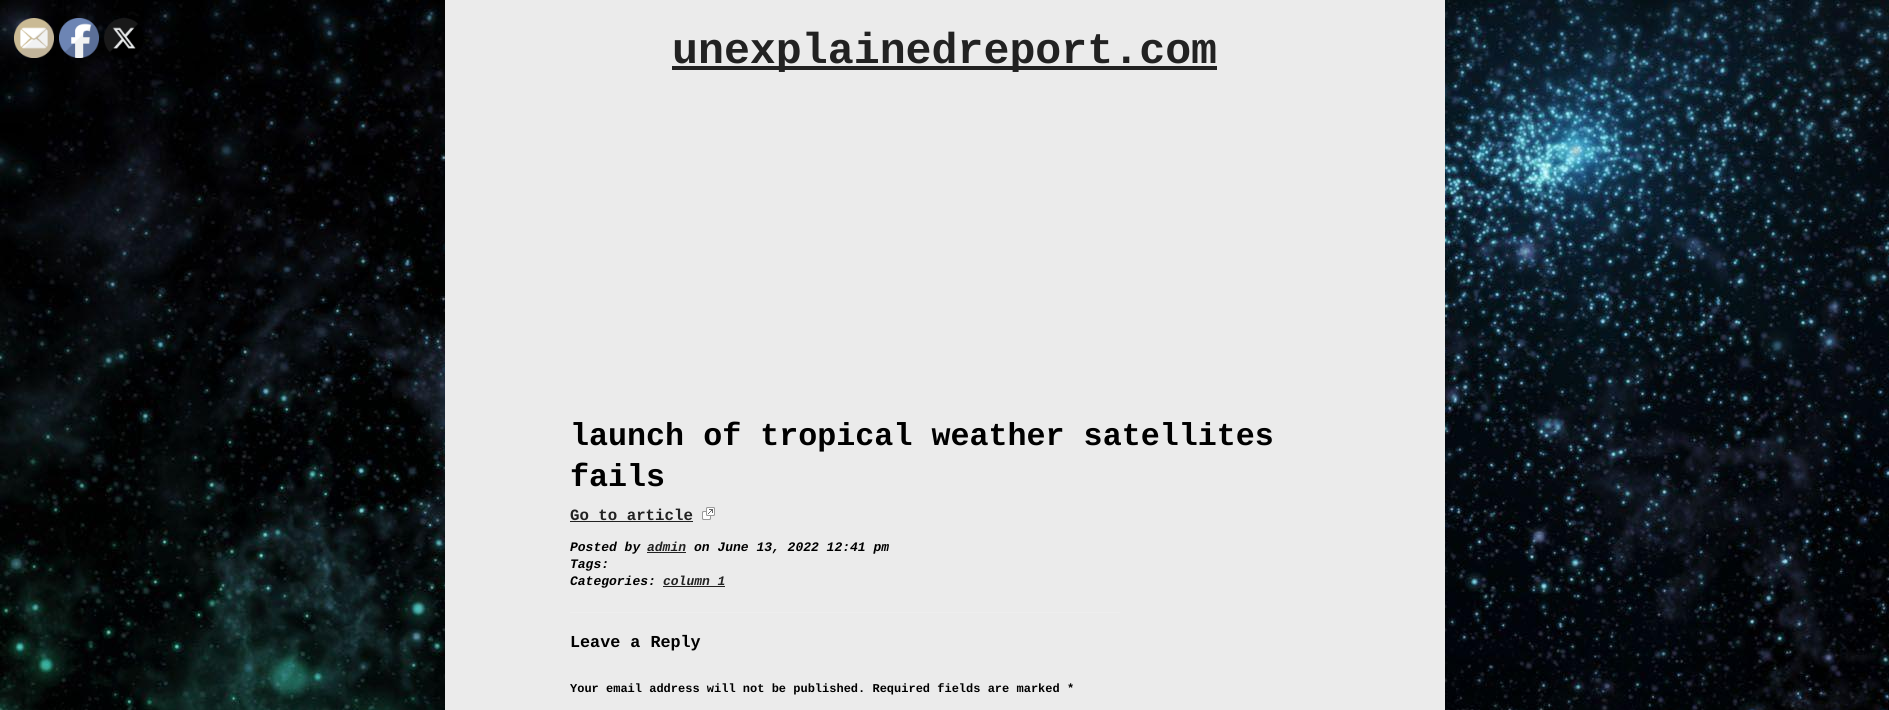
import math
import cairo

surface = cairo.ImageSurface(cairo.FORMAT_RGB24, 1889, 710)
ctx = cairo.Context(surface)
options = cairo.FontOptions()
options.set_hint_metrics(cairo.HINT_METRICS_OFF)
options.set_hint_style(cairo.HINT_STYLE_NONE)
ctx.set_font_options(options)
ctx.set_miter_limit(4)


def picture(path, x, y, w, h):
    ctx.save()
    ctx.set_source_surface(cairo.ImageSurface.create_from_png(path), x, y)
    ctx.rectangle(x, y, w, h)
    ctx.fill()
    ctx.restore()


ctx.set_source_rgb(1, 1, 1)
ctx.paint()
picture("img1.png", 0, 0, 1889, 710)
picture("img2.png", 14, 18, 40, 40)
picture("img3.png", 59, 18, 40, 40)
picture("img4.png", 104, 18, 40, 40)
ctx.set_source_rgb(0.918, 0.918, 0.918)
ctx.rectangle(445, 0, 1000, 710)
ctx.fill()
ctx.set_source_rgb(0.133, 0.133, 0.133)
ctx.rectangle(672, 66, 545, 4)
ctx.fill()
ctx.select_font_face("Liberation Mono", cairo.FONT_SLANT_NORMAL, cairo.FONT_WEIGHT_BOLD)
ctx.set_font_size(43.25)
ctx.move_to(672, 63)
ctx.show_text("unexplainedreport.com")
ctx.set_font_size(31.7)
ctx.set_source_rgb(0, 0, 0)
ctx.move_to(570, 445)
ctx.show_text("launch of tropical weather satellites")
ctx.move_to(570, 486)
ctx.show_text("fails")
ctx.set_font_size(15.75)
ctx.set_source_rgb(0.133, 0.133, 0.133)
ctx.move_to(570, 520)
ctx.show_text("Go to article")
ctx.rectangle(570, 521, 123, 1)
ctx.fill()
picture("img5.png", 702, 507, 13, 13)
ctx.select_font_face("Liberation Mono", cairo.FONT_SLANT_ITALIC, cairo.FONT_WEIGHT_BOLD)
ctx.set_font_size(13)
ctx.set_source_rgb(0, 0, 0)
ctx.move_to(570, 551)
ctx.show_text("Posted by")
ctx.set_source_rgb(0.133, 0.133, 0.133)
ctx.move_to(647, 551)
ctx.show_text("admin")
ctx.rectangle(647, 552, 39, 1)
ctx.fill()
ctx.set_source_rgb(0, 0, 0)
ctx.move_to(694, 551)
ctx.show_text("on June 13, 2022 12:41 pm")
ctx.move_to(570, 568)
ctx.show_text("Tags:")
ctx.move_to(570, 585)
ctx.show_text("Categories:")
ctx.set_source_rgb(0.133, 0.133, 0.133)
ctx.move_to(663, 585)
ctx.show_text("column 1")
ctx.rectangle(663, 586, 62, 1)
ctx.fill()
ctx.set_source_rgb(0.933, 0.933, 0.933)
ctx.rectangle(570, 612, 550, 1)
ctx.fill()
ctx.select_font_face("Liberation Mono", cairo.FONT_SLANT_NORMAL, cairo.FONT_WEIGHT_BOLD)
ctx.set_font_size(16.75)
ctx.set_source_rgb(0, 0, 0)
ctx.move_to(570, 647)
ctx.show_text("Leave a Reply")
ctx.set_font_size(12)
ctx.move_to(570, 692)
ctx.show_text("Your email address will not be published. Required fields are marked *")
surface.write_to_png("page.png")
